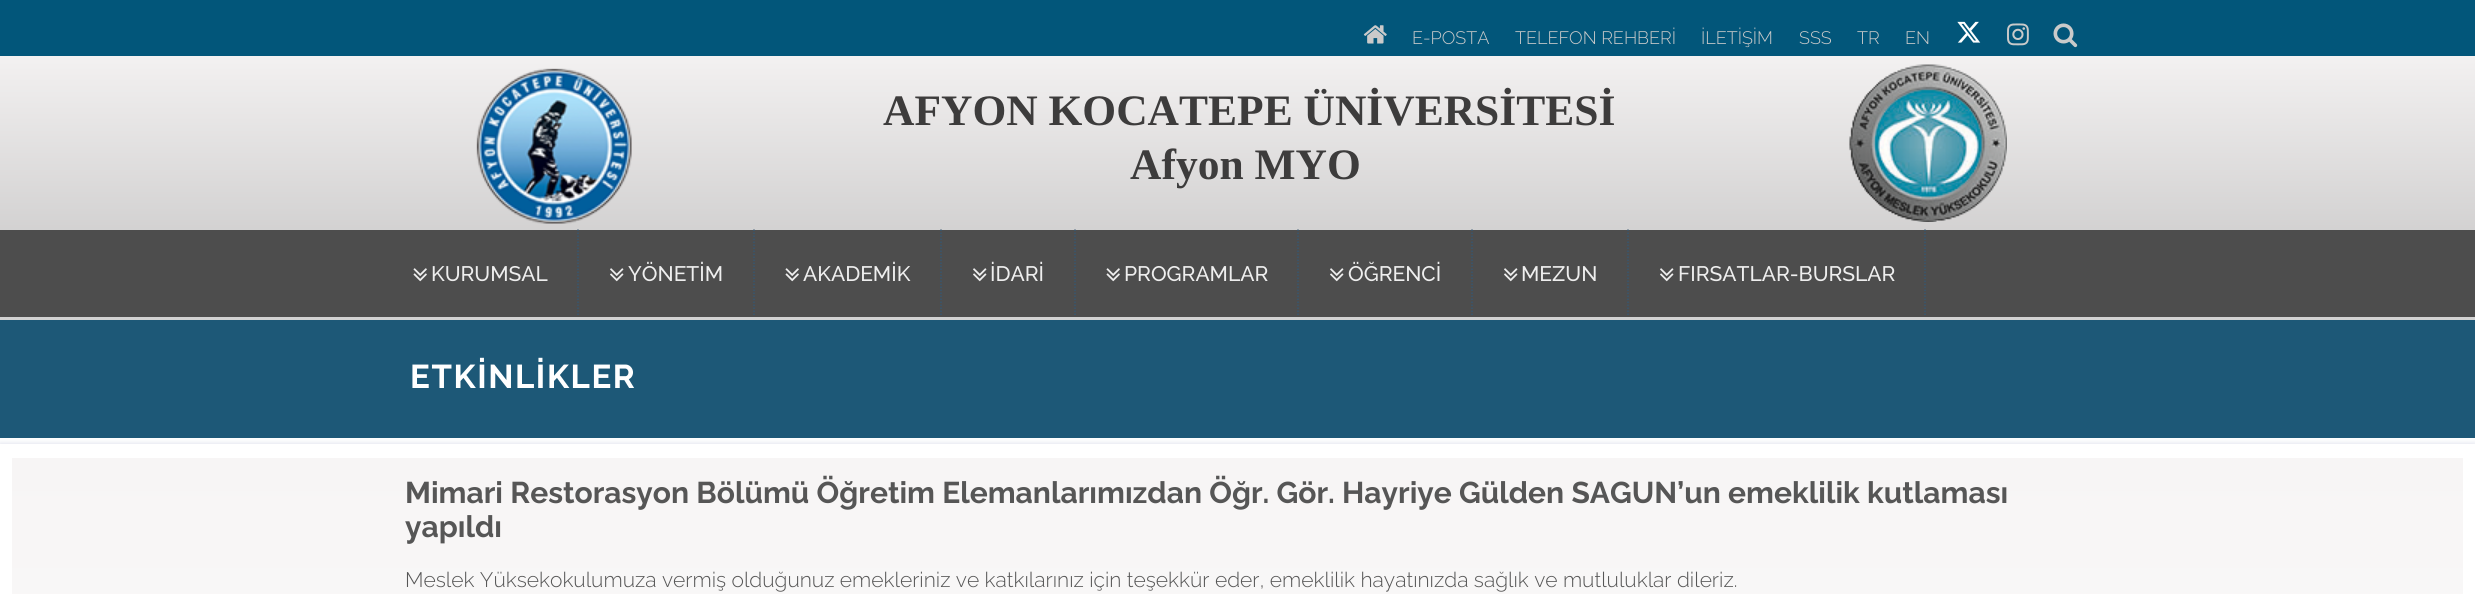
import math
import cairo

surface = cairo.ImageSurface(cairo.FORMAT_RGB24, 2475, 594)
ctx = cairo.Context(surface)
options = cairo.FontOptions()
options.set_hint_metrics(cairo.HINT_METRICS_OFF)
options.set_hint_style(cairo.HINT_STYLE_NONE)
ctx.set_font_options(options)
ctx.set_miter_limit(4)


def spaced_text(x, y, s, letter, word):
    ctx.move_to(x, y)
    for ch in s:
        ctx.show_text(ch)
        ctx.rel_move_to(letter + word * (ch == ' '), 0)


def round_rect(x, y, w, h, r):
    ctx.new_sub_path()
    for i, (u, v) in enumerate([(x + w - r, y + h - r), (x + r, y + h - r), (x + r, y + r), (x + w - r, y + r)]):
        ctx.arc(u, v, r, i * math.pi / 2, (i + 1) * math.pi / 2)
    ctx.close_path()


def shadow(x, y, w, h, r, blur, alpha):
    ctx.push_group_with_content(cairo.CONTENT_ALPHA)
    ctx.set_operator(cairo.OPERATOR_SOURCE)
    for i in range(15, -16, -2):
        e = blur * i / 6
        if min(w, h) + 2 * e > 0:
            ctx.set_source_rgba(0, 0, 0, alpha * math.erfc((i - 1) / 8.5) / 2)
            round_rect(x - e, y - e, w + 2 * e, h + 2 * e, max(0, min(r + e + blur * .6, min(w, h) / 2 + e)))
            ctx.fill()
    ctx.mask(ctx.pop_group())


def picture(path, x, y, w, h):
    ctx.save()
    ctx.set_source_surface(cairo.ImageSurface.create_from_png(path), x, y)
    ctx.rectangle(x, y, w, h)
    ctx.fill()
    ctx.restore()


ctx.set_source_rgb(1, 1, 1)
ctx.paint()
gradient = cairo.LinearGradient(1238, 317, 1238, 0)
gradient.add_color_stop_rgba(0, 0.765, 0.761, 0.761, 1)
gradient.add_color_stop_rgba(1, 0.992, 0.984, 0.984, 1)
ctx.set_source(gradient)
ctx.rectangle(0, 56, 2475, 174)
ctx.fill()
ctx.set_source_rgb(0.824, 0.824, 0.824)
ctx.rectangle(0, 317, 2475, 3)
ctx.fill()
ctx.set_source_rgb(0.008, 0.337, 0.478)
ctx.rectangle(0, 0, 2475, 56)
ctx.fill()
picture("img1.png", 1363, 25, 24, 19)
ctx.select_font_face("Raleway Light")
ctx.set_font_size(18)
ctx.set_source_rgb(0.792, 0.792, 0.792)
ctx.move_to(1412, 44)
ctx.show_text("E-POSTA")
ctx.move_to(1515, 44)
ctx.show_text("TELEFON REHBERİ")
ctx.move_to(1701, 44)
ctx.show_text("İLETİŞİM")
ctx.move_to(1799, 44)
ctx.show_text("SSS")
ctx.move_to(1857, 44)
ctx.show_text("TR")
ctx.move_to(1905, 44)
ctx.show_text("EN")
picture("img2.png", 1957, 21, 24, 22)
picture("img3.png", 2007, 23, 22, 23)
picture("img4.png", 2053, 23, 25, 25)
picture("img5.png", 476, 68, 156, 156)
ctx.select_font_face("Liberation Serif", cairo.FONT_SLANT_NORMAL, cairo.FONT_WEIGHT_BOLD)
ctx.set_font_size(43.5)
ctx.set_source_rgb(0.239, 0.235, 0.235)
ctx.move_to(883, 125)
ctx.show_text("AFYON KOCATEPE ÜNİVERSİTESİ")
ctx.move_to(1130, 179)
ctx.show_text("Afyon MYO")
picture("img6.png", 1849, 64, 158, 158)
ctx.set_source_rgb(0.302, 0.302, 0.302)
ctx.rectangle(0, 230, 2475, 87)
ctx.fill()
ctx.new_path()
ctx.move_to(578, 229.5)
ctx.line_to(578, 316.5)
ctx.set_source_rgb(0.212, 0.337, 0.439)
ctx.set_line_width(1.5)
ctx.set_dash([1.5, 1.5])
ctx.stroke()
picture("img7.png", 413, 268, 14, 14)
ctx.select_font_face("Raleway Medium")
ctx.set_font_size(21)
ctx.set_source_rgb(0.933, 0.933, 0.933)
ctx.move_to(431, 281)
ctx.show_text("KURUMSAL")
ctx.new_path()
ctx.move_to(754, 229.5)
ctx.line_to(754, 316.5)
ctx.set_source_rgb(0.212, 0.337, 0.439)
ctx.stroke()
picture("img8.png", 610, 268, 14, 14)
ctx.set_source_rgb(0.933, 0.933, 0.933)
ctx.move_to(628, 281)
ctx.show_text("YÖNETİM")
ctx.new_path()
ctx.move_to(941, 229.5)
ctx.line_to(941, 316.5)
ctx.set_source_rgb(0.212, 0.337, 0.439)
ctx.stroke()
picture("img7.png", 785, 268, 14, 14)
ctx.set_source_rgb(0.933, 0.933, 0.933)
ctx.move_to(803, 281)
ctx.show_text("AKADEMİK")
ctx.new_path()
ctx.move_to(1075, 229.5)
ctx.line_to(1075, 316.5)
ctx.set_source_rgb(0.212, 0.337, 0.439)
ctx.stroke()
picture("img8.png", 973, 268, 14, 14)
ctx.set_source_rgb(0.933, 0.933, 0.933)
ctx.move_to(990, 281)
ctx.show_text("İDARİ")
ctx.new_path()
ctx.move_to(1298, 229.5)
ctx.line_to(1298, 316.5)
ctx.set_source_rgb(0.212, 0.337, 0.439)
ctx.stroke()
picture("img7.png", 1106, 268, 14, 14)
ctx.set_source_rgb(0.933, 0.933, 0.933)
ctx.move_to(1124, 281)
ctx.show_text("PROGRAMLAR")
ctx.new_path()
ctx.move_to(1472, 229.5)
ctx.line_to(1472, 316.5)
ctx.set_source_rgb(0.212, 0.337, 0.439)
ctx.stroke()
picture("img8.png", 1330, 268, 14, 14)
ctx.set_source_rgb(0.933, 0.933, 0.933)
ctx.move_to(1348, 281)
ctx.show_text("ÖĞRENCİ")
ctx.new_path()
ctx.move_to(1628, 229.5)
ctx.line_to(1628, 316.5)
ctx.set_source_rgb(0.212, 0.337, 0.439)
ctx.stroke()
picture("img8.png", 1504, 268, 14, 14)
ctx.set_source_rgb(0.933, 0.933, 0.933)
ctx.move_to(1521, 281)
ctx.show_text("MEZUN")
ctx.new_path()
ctx.move_to(1925, 229.5)
ctx.line_to(1925, 316.5)
ctx.set_source_rgb(0.212, 0.337, 0.439)
ctx.stroke()
picture("img8.png", 1660, 268, 14, 14)
ctx.set_source_rgb(0.933, 0.933, 0.933)
ctx.move_to(1678, 281)
ctx.show_text("FIRSATLAR-BURSLAR")
ctx.set_source_rgb(0.843, 0.859, 0.906)
shadow(0, 444, 2475, 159, 0, 3, 1)
ctx.set_source_rgb(0.114, 0.345, 0.467)
ctx.rectangle(0, 320, 2475, 118)
ctx.fill()
ctx.select_font_face("Raleway", cairo.FONT_SLANT_NORMAL, cairo.FONT_WEIGHT_BOLD)
ctx.set_font_size(33)
ctx.set_source_rgb(1, 1, 1)
spaced_text(410, 388, "ETKİNLİKLER", 1.6, 0)
gradient = cairo.LinearGradient(1238, 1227, 1238, 456)
gradient.add_color_stop_rgba(0, 1, 1, 1, 1)
gradient.add_color_stop_rgba(1, 0.969, 0.961, 0.961, 1)
ctx.set_source(gradient)
ctx.rectangle(12, 458, 2451, 136)
ctx.fill()
ctx.set_source_rgb(1, 1, 1)
ctx.rectangle(12, 456, 2451, 2)
ctx.fill()
ctx.rectangle(6, 450, 2463, 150)
ctx.set_line_width(12)
ctx.set_dash([])
ctx.stroke()
ctx.set_font_size(30)
ctx.set_source_rgb(0.337, 0.337, 0.337)
ctx.move_to(405, 503)
ctx.show_text("Mimari Restorasyon Bölümü Öğretim Elemanlarımızdan Öğr. Gör. Hayriye Gülden SAGUN’un emeklilik kutlaması")
ctx.move_to(405, 537)
ctx.show_text("yapıldı")
ctx.select_font_face("Raleway Light")
ctx.set_font_size(21)
ctx.move_to(405, 587)
ctx.show_text("Meslek Yüksekokulumuza vermiş olduğunuz emekleriniz ve katkılarınız için teşekkür eder, emeklilik hayatınızda sağlık ve mutluluklar dileriz.")
surface.write_to_png("page.png")
